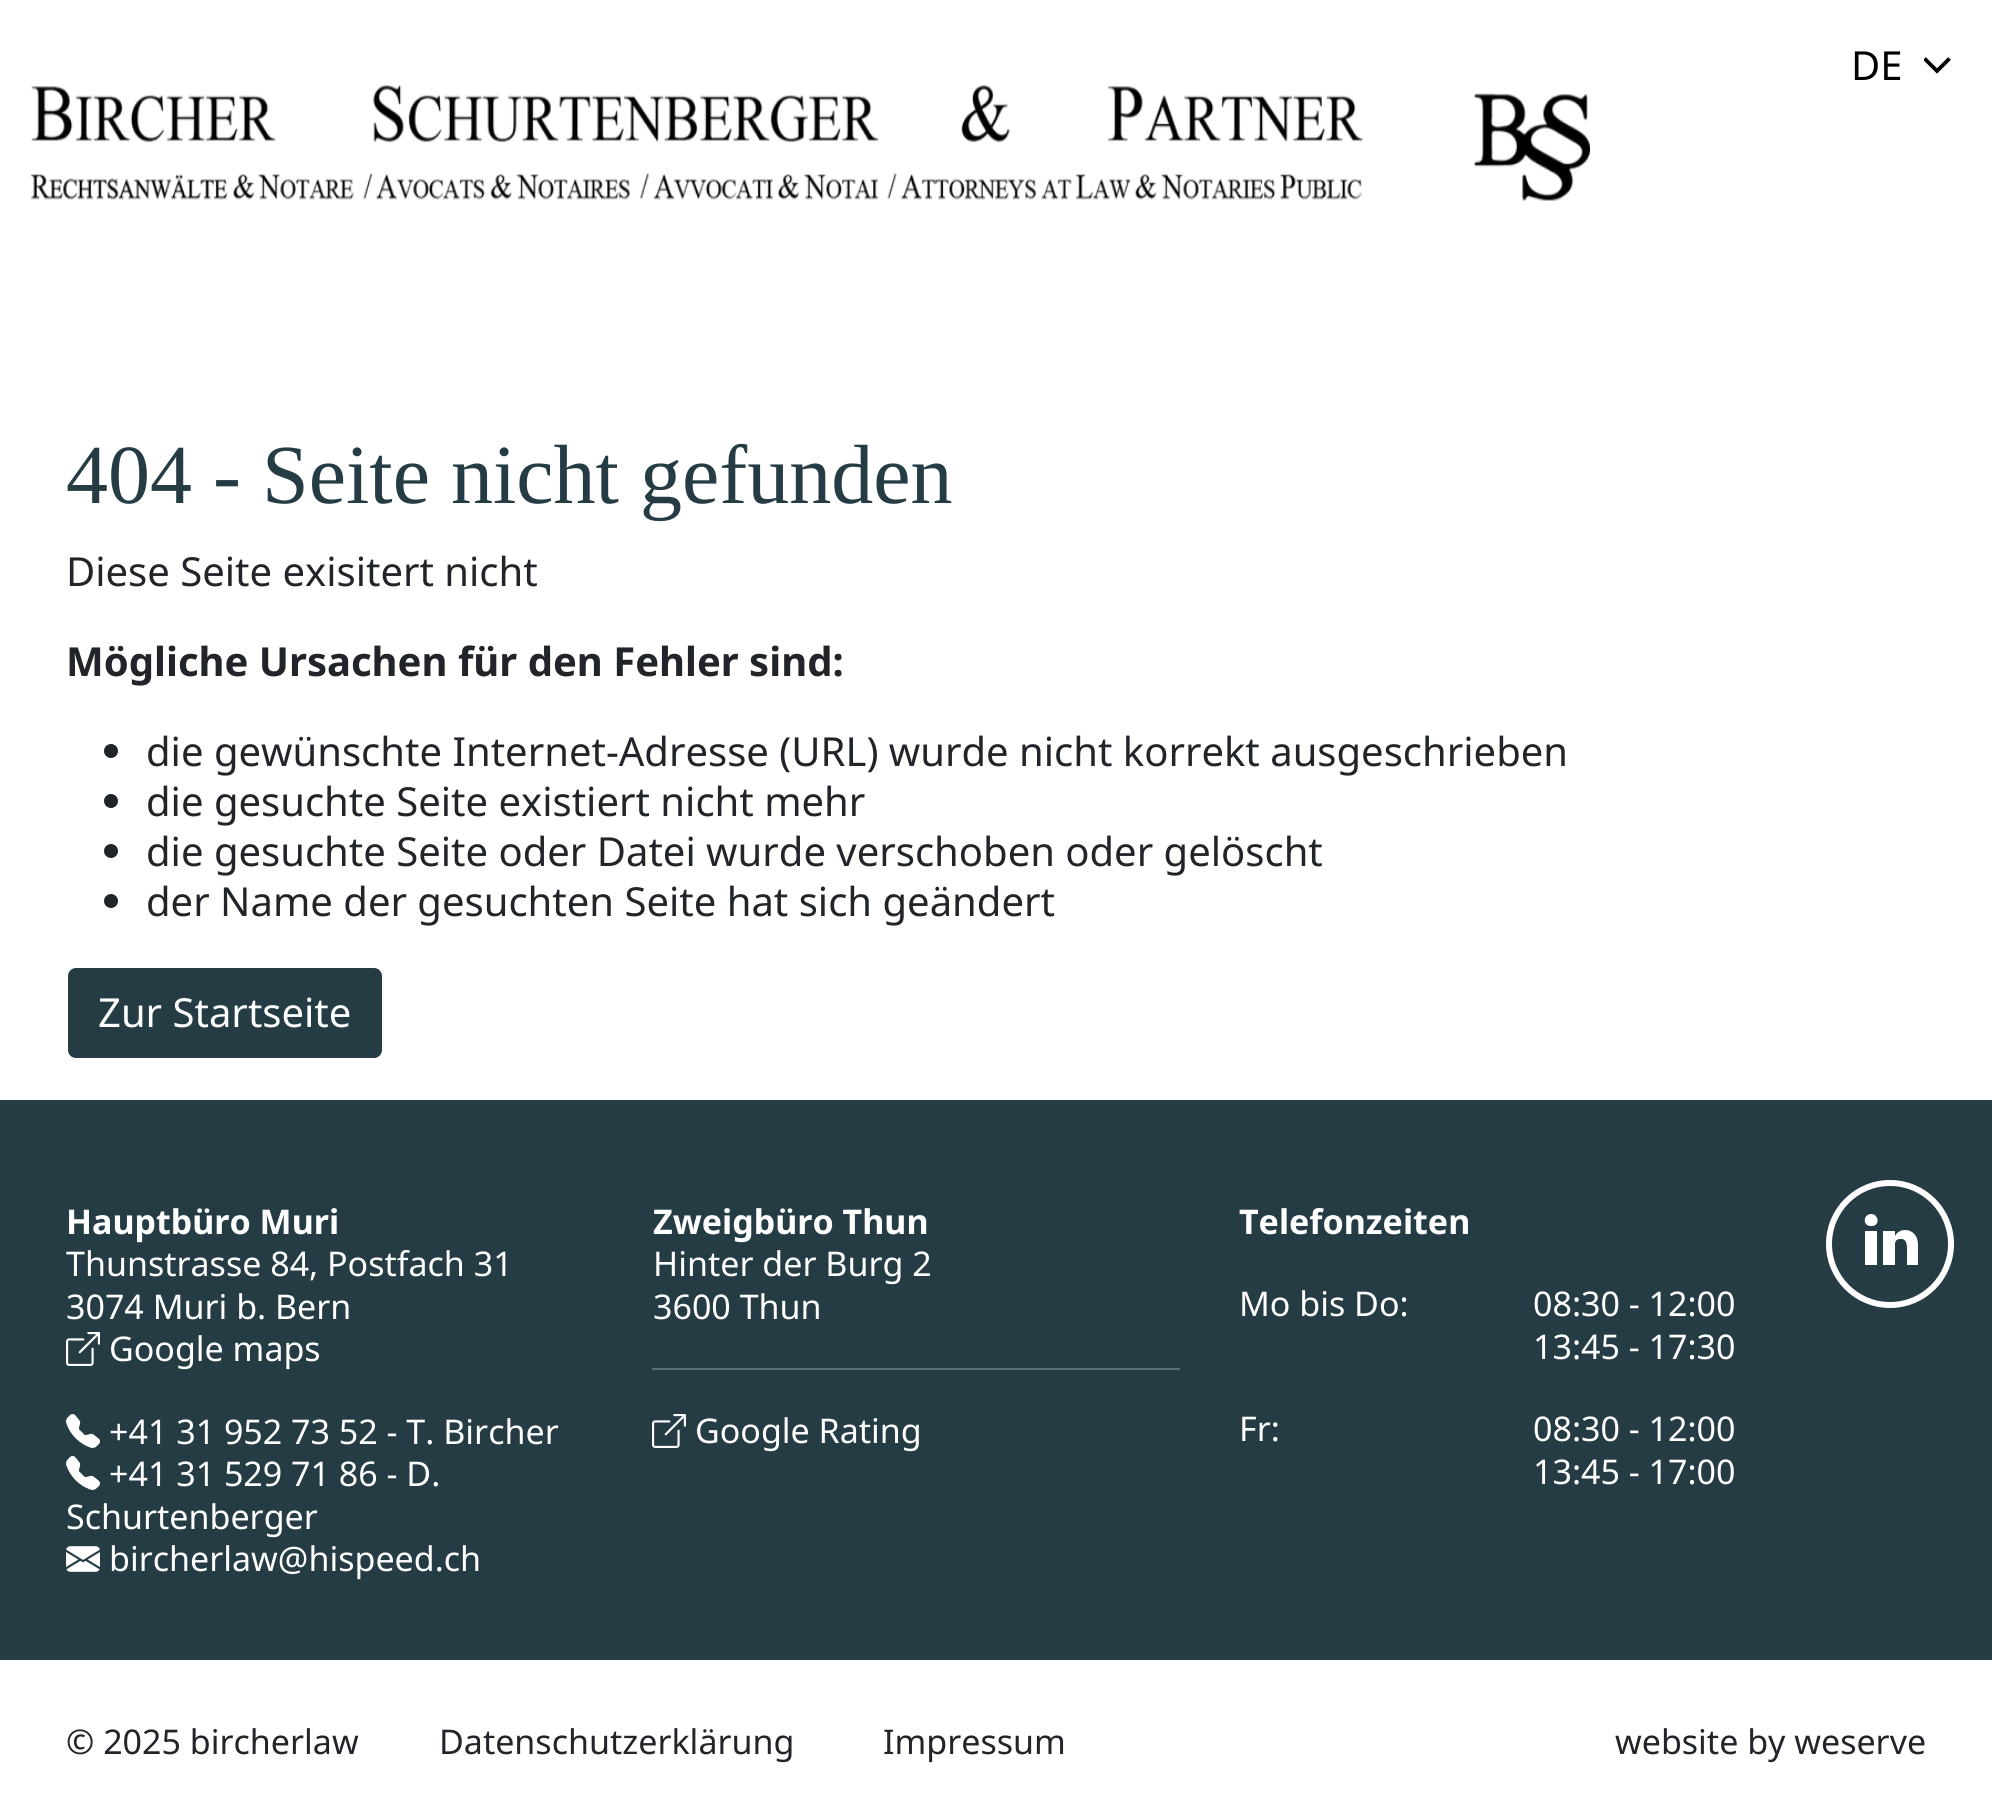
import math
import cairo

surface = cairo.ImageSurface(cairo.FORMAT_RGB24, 1992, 1820)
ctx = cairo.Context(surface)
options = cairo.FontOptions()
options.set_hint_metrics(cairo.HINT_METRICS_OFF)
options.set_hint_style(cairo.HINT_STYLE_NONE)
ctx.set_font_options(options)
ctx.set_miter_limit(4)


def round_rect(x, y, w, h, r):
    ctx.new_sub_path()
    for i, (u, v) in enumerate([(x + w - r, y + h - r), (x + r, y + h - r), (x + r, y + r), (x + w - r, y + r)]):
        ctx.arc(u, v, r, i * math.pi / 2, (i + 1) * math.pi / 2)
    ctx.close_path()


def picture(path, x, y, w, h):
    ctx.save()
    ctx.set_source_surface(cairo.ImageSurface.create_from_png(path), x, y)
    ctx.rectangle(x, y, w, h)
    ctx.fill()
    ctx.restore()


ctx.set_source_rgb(1, 1, 1)
ctx.paint()
ctx.select_font_face("Noto Sans")
ctx.set_font_size(40)
ctx.set_source_rgb(0, 0, 0)
ctx.move_to(1851, 80)
ctx.show_text("DE")
ctx.save()
ctx.new_path()
ctx.move_to(1952, 56.5)
ctx.line_to(1952, 73.5)
ctx.line_to(1924, 73.5)
ctx.line_to(1924, 56.5)
ctx.close_path()
ctx.clip()
ctx.new_path()
ctx.move_to(1949.5, 58.5)
ctx.line_to(1937, 71)
ctx.line_to(1924.5, 58.5)
ctx.set_line_width(3.8)
ctx.stroke()
ctx.restore()
picture("img1.png", 31, 85, 1559, 116)
ctx.select_font_face("Liberation Serif")
ctx.set_font_size(84)
ctx.set_source_rgb(0.145, 0.235, 0.267)
ctx.move_to(66, 503)
ctx.show_text("404 - Seite nicht gefunden")
ctx.select_font_face("Noto Sans")
ctx.set_font_size(40)
ctx.set_source_rgb(0.129, 0.145, 0.161)
ctx.move_to(66, 586)
ctx.show_text("Diese Seite exisitert nicht")
ctx.select_font_face("Noto Sans", cairo.FONT_SLANT_NORMAL, cairo.FONT_WEIGHT_BOLD)
ctx.move_to(66, 676)
ctx.show_text("Mögliche Ursachen für den Fehler sind:")
ctx.new_path()
ctx.arc(111, 751, 7, 0, 2 * math.pi)
ctx.fill()
ctx.select_font_face("Noto Sans")
ctx.move_to(146, 766)
ctx.show_text("die gewünschte Internet-Adresse (URL) wurde nicht korrekt ausgeschrieben")
ctx.new_path()
ctx.arc(111, 801, 7, 0, 2 * math.pi)
ctx.fill()
ctx.move_to(146, 816)
ctx.show_text("die gesuchte Seite existiert nicht mehr")
ctx.new_path()
ctx.arc(111, 851, 7, 0, 2 * math.pi)
ctx.fill()
ctx.move_to(146, 866)
ctx.show_text("die gesuchte Seite oder Datei wurde verschoben oder gelöscht")
ctx.new_path()
ctx.arc(111, 901, 7, 0, 2 * math.pi)
ctx.fill()
ctx.move_to(146, 916)
ctx.show_text("der Name der gesuchten Seite hat sich geändert")
ctx.set_source_rgb(0.145, 0.235, 0.267)
round_rect(67, 967, 316, 92, 9)
ctx.fill_preserve()
ctx.set_source_rgb(1, 1, 1)
ctx.stroke()
ctx.move_to(98, 1027)
ctx.show_text("Zur Startseite")
ctx.set_source_rgb(0.145, 0.235, 0.267)
ctx.rectangle(0, 1100, 1992, 560)
ctx.fill()
ctx.select_font_face("Noto Sans", cairo.FONT_SLANT_NORMAL, cairo.FONT_WEIGHT_BOLD)
ctx.set_font_size(34)
ctx.set_source_rgb(1, 1, 1)
ctx.move_to(66, 1234)
ctx.show_text("Hauptbüro Muri")
ctx.select_font_face("Noto Sans")
ctx.move_to(66, 1276)
ctx.show_text("Thunstrasse 84, Postfach 31")
ctx.move_to(66, 1319)
ctx.show_text("3074 Muri b. Bern")
picture("img2.png", 66, 1332, 34, 34)
ctx.move_to(109, 1361)
ctx.show_text("Google maps")
picture("img3.png", 66, 1414, 34, 34)
ctx.move_to(109, 1444)
ctx.show_text("+41 31 952 73 52 - T. Bircher")
picture("img3.png", 66, 1456, 34, 34)
ctx.move_to(109, 1486)
ctx.show_text("+41 31 529 71 86 - D.")
ctx.move_to(66, 1529)
ctx.show_text("Schurtenberger")
picture("img4.png", 66, 1546, 34, 26)
ctx.move_to(109, 1571)
ctx.show_text("bircherlaw@hispeed.ch")
ctx.select_font_face("Noto Sans", cairo.FONT_SLANT_NORMAL, cairo.FONT_WEIGHT_BOLD)
ctx.move_to(653, 1234)
ctx.show_text("Zweigbüro Thun")
ctx.select_font_face("Noto Sans")
ctx.move_to(653, 1276)
ctx.show_text("Hinter der Burg 2")
ctx.move_to(653, 1319)
ctx.show_text("3600 Thun")
ctx.set_source_rgb(0.361, 0.427, 0.451)
ctx.rectangle(652, 1368, 528, 2)
ctx.fill()
picture("img2.png", 652, 1414, 34, 34)
ctx.set_source_rgb(1, 1, 1)
ctx.move_to(695, 1443)
ctx.show_text("Google Rating")
ctx.select_font_face("Noto Sans", cairo.FONT_SLANT_NORMAL, cairo.FONT_WEIGHT_BOLD)
ctx.move_to(1239, 1234)
ctx.show_text("Telefonzeiten")
ctx.select_font_face("Noto Sans")
ctx.move_to(1239, 1316)
ctx.show_text("Mo bis Do:")
ctx.move_to(1533, 1316)
ctx.show_text("08:30 - 12:00")
ctx.move_to(1533, 1359)
ctx.show_text("13:45 - 17:30")
ctx.move_to(1239, 1441)
ctx.show_text("Fr:")
ctx.move_to(1533, 1441)
ctx.show_text("08:30 - 12:00")
ctx.move_to(1533, 1484)
ctx.show_text("13:45 - 17:00")
ctx.new_path()
ctx.move_to(1918, 1245)
ctx.line_to(1918, 1265)
ctx.line_to(1907, 1265)
ctx.line_to(1907, 1253)
ctx.curve_to(1907, 1248, 1908, 1238, 1900, 1239)
ctx.curve_to(1897, 1239, 1895, 1241, 1895, 1244)
ctx.line_to(1895, 1265)
ctx.line_to(1883, 1265)
ctx.line_to(1883, 1231)
ctx.line_to(1895, 1231)
ctx.line_to(1895, 1236)
ctx.curve_to(1897, 1232, 1901, 1230, 1905, 1230)
ctx.curve_to(1912, 1230, 1918, 1235, 1918, 1245)
ctx.close_path()
ctx.move_to(1871, 1214)
ctx.curve_to(1863, 1214, 1862, 1227, 1872, 1226)
ctx.curve_to(1880, 1226, 1879, 1214, 1871, 1214)
ctx.close_path()
ctx.move_to(1865, 1265)
ctx.line_to(1877, 1265)
ctx.line_to(1877, 1231)
ctx.line_to(1865, 1231)
ctx.close_path()
ctx.fill()
ctx.arc(1890, 1244, 61, 0, 2 * math.pi)
ctx.set_line_width(6)
ctx.stroke()
ctx.set_source_rgb(0.129, 0.145, 0.161)
ctx.move_to(66, 1754)
ctx.show_text("© 2025 bircherlaw")
ctx.move_to(439, 1754)
ctx.show_text("Datenschutzerklärung")
ctx.move_to(883, 1754)
ctx.show_text("Impressum")
ctx.move_to(1615, 1754)
ctx.show_text("website by weserve")
surface.write_to_png("page.png")
